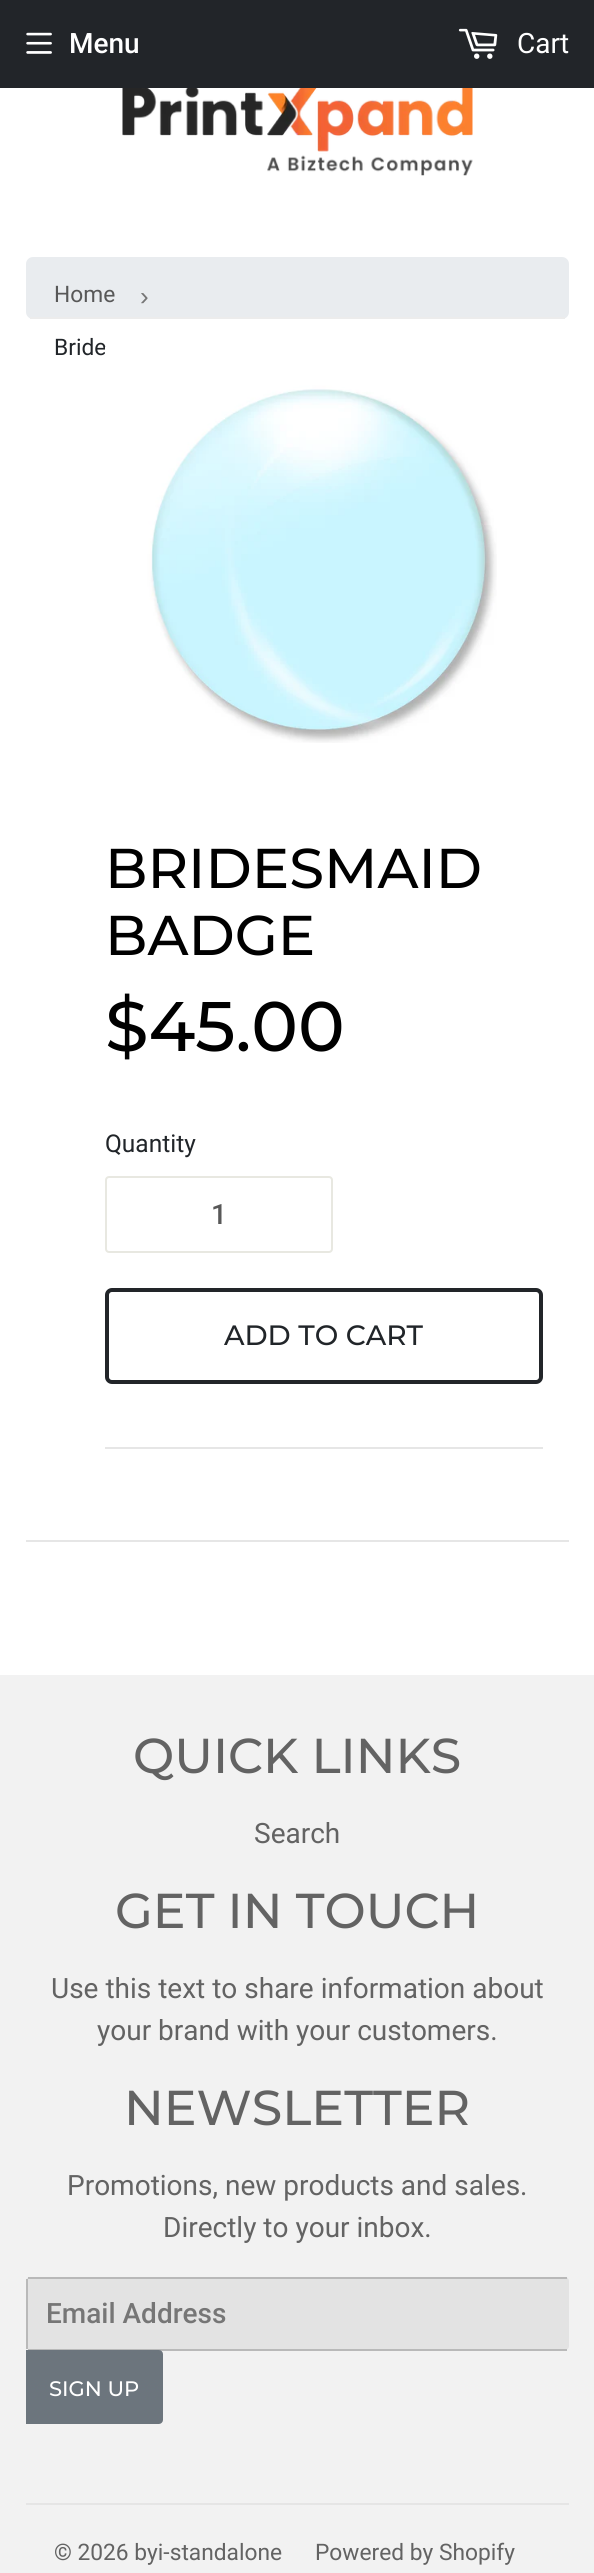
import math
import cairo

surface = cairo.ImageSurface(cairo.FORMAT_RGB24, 594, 2573)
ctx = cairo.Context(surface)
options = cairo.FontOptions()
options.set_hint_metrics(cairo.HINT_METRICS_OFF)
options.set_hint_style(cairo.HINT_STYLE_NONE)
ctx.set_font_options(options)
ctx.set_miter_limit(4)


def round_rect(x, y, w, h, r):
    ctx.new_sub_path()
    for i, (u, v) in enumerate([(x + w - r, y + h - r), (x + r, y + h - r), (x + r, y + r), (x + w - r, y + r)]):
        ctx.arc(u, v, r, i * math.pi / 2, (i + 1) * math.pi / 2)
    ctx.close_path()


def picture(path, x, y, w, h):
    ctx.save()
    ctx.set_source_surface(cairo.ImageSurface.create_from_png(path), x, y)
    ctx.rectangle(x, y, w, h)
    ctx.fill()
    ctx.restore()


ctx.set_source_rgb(1, 1, 1)
ctx.paint()
ctx.set_source_rgb(0.133, 0.145, 0.161)
ctx.rectangle(0, 0, 594, 88)
ctx.fill()
picture("img1.png", 26, 32, 26, 22)
ctx.select_font_face("Roboto Medium")
ctx.set_font_size(28)
ctx.set_source_rgb(1, 1, 1)
ctx.move_to(69, 53)
ctx.show_text("Menu")
picture("img2.png", 458, 28, 40, 31)
ctx.select_font_face("Roboto")
ctx.move_to(517, 53)
ctx.show_text("Cart")
picture("img3.png", 122, 88, 351, 88)
ctx.set_source_rgb(0.914, 0.925, 0.937)
round_rect(26, 257, 543, 62, 7)
ctx.fill()
ctx.set_source_rgb(0.925, 0.925, 0.925)
ctx.rectangle(30, 317, 535, 2)
ctx.fill()
ctx.set_font_size(22.75)
ctx.set_source_rgb(0.345, 0.345, 0.345)
ctx.move_to(54, 302)
ctx.show_text("Home")
ctx.select_font_face("Liberation Sans")
ctx.set_font_size(26)
ctx.set_source_rgb(0.463, 0.463, 0.463)
ctx.move_to(140, 305)
ctx.show_text("›")
ctx.select_font_face("Roboto")
ctx.set_font_size(22.75)
ctx.set_source_rgb(0.129, 0.145, 0.161)
ctx.move_to(54, 355)
ctx.show_text("Bride")
picture("img4.png", 105, 346, 392, 397)
ctx.select_font_face("Montserrat Medium")
ctx.set_font_size(56)
ctx.set_source_rgb(0, 0, 0)
ctx.move_to(105, 888)
ctx.show_text("BRIDESMAID")
ctx.move_to(105, 955)
ctx.show_text("BADGE")
ctx.set_font_size(70)
ctx.move_to(105, 1051)
ctx.show_text("$45.00")
ctx.select_font_face("Roboto")
ctx.set_font_size(24.5)
ctx.set_source_rgb(0.129, 0.145, 0.161)
ctx.move_to(105, 1152)
ctx.show_text("Quantity")
round_rect(106, 1177, 226, 75, 3)
ctx.set_source_rgb(0.91, 0.91, 0.882)
ctx.stroke()
ctx.select_font_face("Roboto Medium")
ctx.set_font_size(28)
ctx.set_source_rgb(0.345, 0.345, 0.345)
ctx.move_to(211, 1224)
ctx.show_text("1")
round_rect(107, 1290, 434, 92, 5)
ctx.set_source_rgb(0.133, 0.145, 0.161)
ctx.set_line_width(4)
ctx.stroke()
ctx.select_font_face("Montserrat Medium")
ctx.set_source_rgb(0.129, 0.145, 0.161)
ctx.move_to(224, 1345)
ctx.show_text("ADD TO CART")
ctx.set_source_rgb(0.902, 0.902, 0.902)
ctx.rectangle(105, 1447, 438, 2)
ctx.fill()
ctx.rectangle(26, 1540, 543, 2)
ctx.fill()
ctx.set_source_rgb(0.949, 0.949, 0.949)
ctx.rectangle(0, 1675, 594, 898)
ctx.fill()
ctx.set_font_size(49)
ctx.set_source_rgb(0.388, 0.388, 0.388)
ctx.move_to(133, 1773)
ctx.show_text("QUICK LINKS")
ctx.select_font_face("Roboto")
ctx.set_font_size(28)
ctx.move_to(254, 1843)
ctx.show_text("Search")
ctx.select_font_face("Montserrat Medium")
ctx.set_font_size(49)
ctx.move_to(115, 1928)
ctx.show_text("GET IN TOUCH")
ctx.select_font_face("Roboto")
ctx.set_font_size(28)
ctx.move_to(51, 1998)
ctx.show_text("Use this text to share information about")
ctx.move_to(97, 2040)
ctx.show_text("your brand with your customers.")
ctx.select_font_face("Montserrat Medium")
ctx.set_font_size(49)
ctx.move_to(124, 2125)
ctx.show_text("NEWSLETTER")
ctx.select_font_face("Roboto")
ctx.set_font_size(28)
ctx.move_to(67, 2195)
ctx.show_text("Promotions, new products and sales.")
ctx.move_to(163, 2237)
ctx.show_text("Directly to your inbox.")
ctx.set_source_rgb(0.89, 0.89, 0.89)
round_rect(26, 2277, 543, 73, 4)
ctx.fill()
ctx.set_source_rgb(0.725, 0.725, 0.725)
ctx.rectangle(28, 2277, 539, 2)
ctx.fill()
ctx.rectangle(28, 2349, 539, 2)
ctx.fill()
ctx.rectangle(26, 2279, 2, 70)
ctx.fill()
ctx.select_font_face("Roboto Medium")
ctx.set_source_rgb(0.463, 0.463, 0.463)
ctx.move_to(46, 2323)
ctx.show_text("Email Address")
ctx.set_source_rgb(0.424, 0.459, 0.49)
ctx.new_path()
ctx.move_to(27, 2351)
ctx.line_to(159, 2351)
ctx.curve_to(160.5, 2351, 162, 2352.5, 162, 2354)
ctx.line_to(162, 2420)
ctx.curve_to(162, 2421.5, 160.5, 2423, 159, 2423)
ctx.line_to(27, 2423)
ctx.close_path()
ctx.fill_preserve()
ctx.set_line_width(2)
ctx.stroke()
ctx.select_font_face("Montserrat Medium")
ctx.set_font_size(21)
ctx.set_source_rgb(1, 1, 1)
ctx.move_to(49, 2396)
ctx.show_text("SIGN UP")
ctx.set_source_rgb(0.898, 0.898, 0.898)
ctx.rectangle(26, 2503, 543, 2)
ctx.fill()
ctx.select_font_face("Roboto")
ctx.set_font_size(22.75)
ctx.set_source_rgb(0.388, 0.388, 0.388)
ctx.move_to(54, 2560)
ctx.show_text("© 2026 byi-standalone")
ctx.move_to(315, 2560)
ctx.show_text("Powered by Shopify")
surface.write_to_png("page.png")
